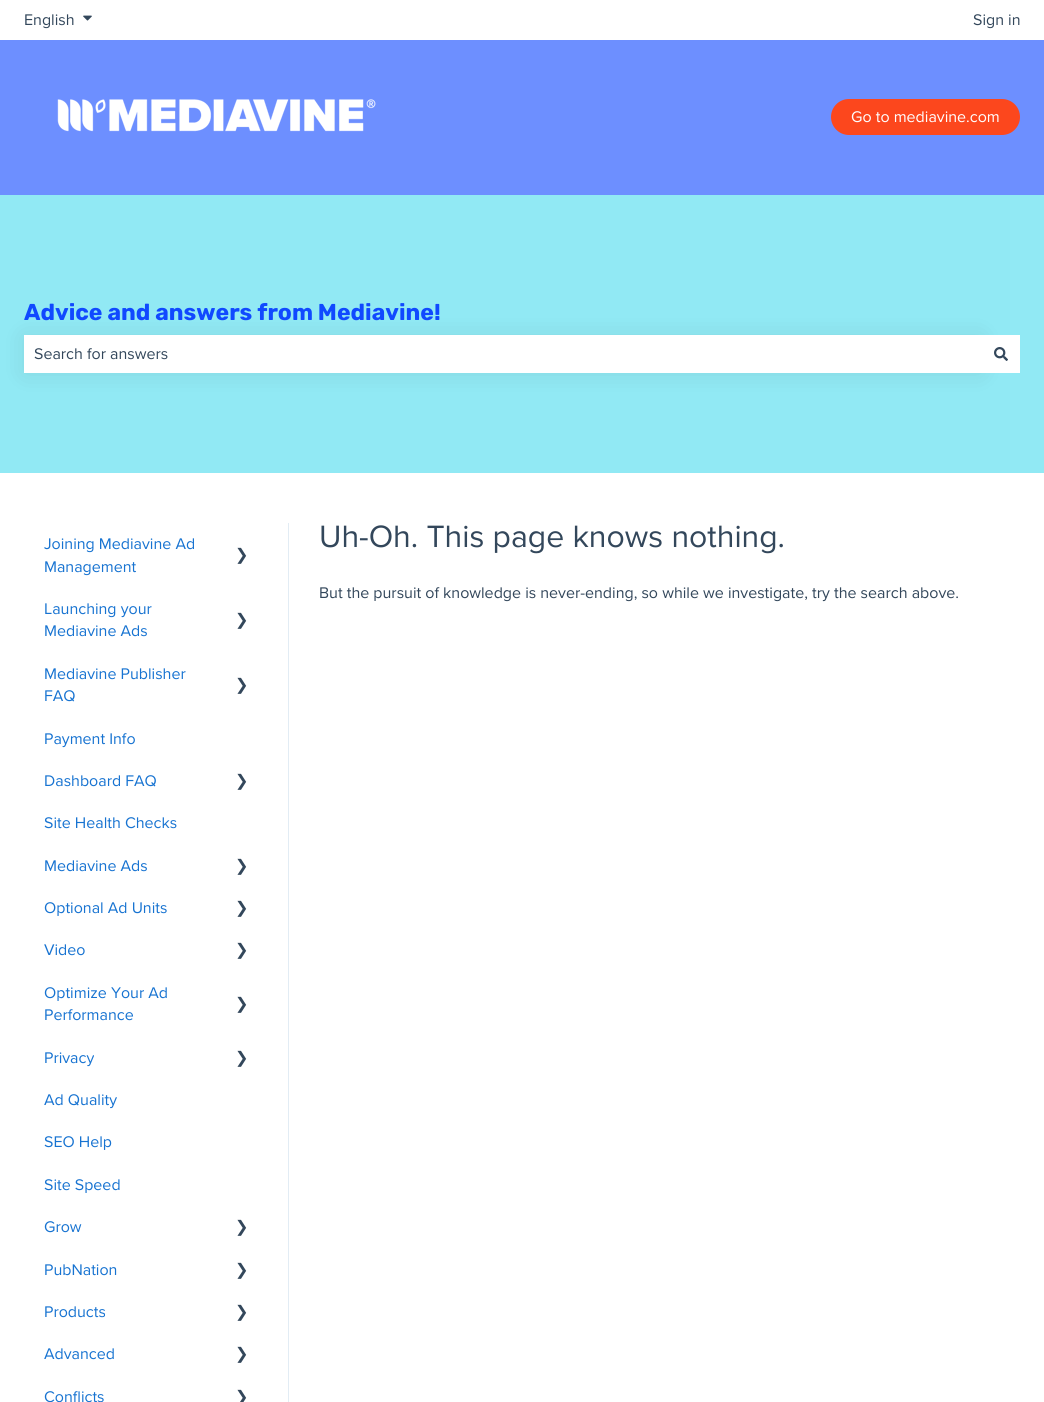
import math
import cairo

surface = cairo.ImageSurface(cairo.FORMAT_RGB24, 1044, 1402)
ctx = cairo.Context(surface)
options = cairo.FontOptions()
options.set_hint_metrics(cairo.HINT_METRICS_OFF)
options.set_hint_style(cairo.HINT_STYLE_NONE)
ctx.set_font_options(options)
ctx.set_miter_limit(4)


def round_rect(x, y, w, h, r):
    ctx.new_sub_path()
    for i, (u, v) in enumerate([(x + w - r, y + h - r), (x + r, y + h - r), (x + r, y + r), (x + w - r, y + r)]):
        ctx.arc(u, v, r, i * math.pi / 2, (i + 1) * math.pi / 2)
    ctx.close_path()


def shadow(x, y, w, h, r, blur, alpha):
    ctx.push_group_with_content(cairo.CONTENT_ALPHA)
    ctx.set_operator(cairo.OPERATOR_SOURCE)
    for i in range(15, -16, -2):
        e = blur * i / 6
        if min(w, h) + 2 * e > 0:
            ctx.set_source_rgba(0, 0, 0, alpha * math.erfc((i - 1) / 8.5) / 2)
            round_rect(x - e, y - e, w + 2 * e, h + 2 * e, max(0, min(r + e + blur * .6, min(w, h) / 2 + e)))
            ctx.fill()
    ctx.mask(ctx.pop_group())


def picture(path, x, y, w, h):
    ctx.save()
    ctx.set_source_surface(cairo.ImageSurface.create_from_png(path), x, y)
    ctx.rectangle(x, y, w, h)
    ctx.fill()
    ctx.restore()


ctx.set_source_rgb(1, 1, 1)
ctx.paint()
ctx.select_font_face("Proxima Nova")
ctx.set_font_size(16)
ctx.set_source_rgb(0.2, 0.278, 0.357)
ctx.move_to(24, 25)
ctx.show_text("English")
picture("img1.png", 83, 15, 9, 6)
ctx.move_to(973, 25)
ctx.show_text("Sign in")
ctx.set_source_rgb(0.427, 0.561, 1)
ctx.rectangle(0, 40, 1044, 155)
ctx.fill()
picture("img2.png", 57, 99, 319, 33)
ctx.set_source_rgb(0.988, 0.278, 0.114)
round_rect(831, 99, 189, 36, 18)
ctx.fill()
ctx.set_source_rgb(1, 1, 1)
ctx.move_to(851, 122)
ctx.show_text("Go to mediavine.com")
ctx.set_source_rgb(0.569, 0.914, 0.957)
ctx.rectangle(0, 195, 1044, 278)
ctx.fill()
ctx.select_font_face("Rubik", cairo.FONT_SLANT_NORMAL, cairo.FONT_WEIGHT_BOLD)
ctx.set_font_size(23)
ctx.set_source_rgb(0.063, 0.286, 1)
ctx.move_to(24, 320)
ctx.show_text("Advice and answers from Mediavine!")
ctx.set_source_rgb(0, 0, 0)
shadow(24, 336, 958, 38, 0, 12, 0.08)
ctx.set_source_rgb(1, 1, 1)
ctx.rectangle(24, 335, 996, 38)
ctx.fill()
ctx.select_font_face("Proxima Nova")
ctx.set_font_size(16)
ctx.set_source_rgb(0.2, 0.278, 0.357)
ctx.move_to(34, 359)
ctx.show_text("Search for answers")
picture("img3.png", 994, 347, 14, 14)
ctx.set_source_rgb(0.886, 0.922, 0.957)
ctx.rectangle(288, 523, 1, 879)
ctx.fill()
ctx.set_source_rgb(0.09, 0.451, 0.82)
ctx.move_to(44, 549)
ctx.show_text("Joining Mediavine Ad")
ctx.move_to(44, 572)
ctx.show_text("Management")
ctx.select_font_face("DejaVu Sans")
ctx.set_source_rgb(0.2, 0.278, 0.357)
ctx.move_to(235, 560)
ctx.show_text("❯")
ctx.select_font_face("Proxima Nova")
ctx.set_source_rgb(0.09, 0.451, 0.82)
ctx.move_to(44, 614)
ctx.show_text("Launching your")
ctx.move_to(44, 636)
ctx.show_text("Mediavine Ads")
ctx.select_font_face("DejaVu Sans")
ctx.set_source_rgb(0.2, 0.278, 0.357)
ctx.move_to(235, 625)
ctx.show_text("❯")
ctx.select_font_face("Proxima Nova")
ctx.set_source_rgb(0.09, 0.451, 0.82)
ctx.move_to(44, 679)
ctx.show_text("Mediavine Publisher")
ctx.move_to(44, 701)
ctx.show_text("FAQ")
ctx.select_font_face("DejaVu Sans")
ctx.set_source_rgb(0.2, 0.278, 0.357)
ctx.move_to(235, 690)
ctx.show_text("❯")
ctx.select_font_face("Proxima Nova")
ctx.set_source_rgb(0.09, 0.451, 0.82)
ctx.move_to(44, 744)
ctx.show_text("Payment Info")
ctx.move_to(44, 786)
ctx.show_text("Dashboard FAQ")
ctx.select_font_face("DejaVu Sans")
ctx.set_source_rgb(0.2, 0.278, 0.357)
ctx.move_to(235, 786)
ctx.show_text("❯")
ctx.select_font_face("Proxima Nova")
ctx.set_source_rgb(0.09, 0.451, 0.82)
ctx.move_to(44, 828)
ctx.show_text("Site Health Checks")
ctx.move_to(44, 871)
ctx.show_text("Mediavine Ads")
ctx.select_font_face("DejaVu Sans")
ctx.set_source_rgb(0.2, 0.278, 0.357)
ctx.move_to(235, 871)
ctx.show_text("❯")
ctx.select_font_face("Proxima Nova")
ctx.set_source_rgb(0.09, 0.451, 0.82)
ctx.move_to(44, 913)
ctx.show_text("Optional Ad Units")
ctx.select_font_face("DejaVu Sans")
ctx.set_source_rgb(0.2, 0.278, 0.357)
ctx.move_to(235, 913)
ctx.show_text("❯")
ctx.select_font_face("Proxima Nova")
ctx.set_source_rgb(0.09, 0.451, 0.82)
ctx.move_to(44, 955)
ctx.show_text("Video")
ctx.select_font_face("DejaVu Sans")
ctx.set_source_rgb(0.2, 0.278, 0.357)
ctx.move_to(235, 955)
ctx.show_text("❯")
ctx.select_font_face("Proxima Nova")
ctx.set_source_rgb(0.09, 0.451, 0.82)
ctx.move_to(44, 998)
ctx.show_text("Optimize Your Ad")
ctx.move_to(44, 1020)
ctx.show_text("Performance")
ctx.select_font_face("DejaVu Sans")
ctx.set_source_rgb(0.2, 0.278, 0.357)
ctx.move_to(235, 1009)
ctx.show_text("❯")
ctx.select_font_face("Proxima Nova")
ctx.set_source_rgb(0.09, 0.451, 0.82)
ctx.move_to(44, 1063)
ctx.show_text("Privacy")
ctx.select_font_face("DejaVu Sans")
ctx.set_source_rgb(0.2, 0.278, 0.357)
ctx.move_to(235, 1063)
ctx.show_text("❯")
ctx.select_font_face("Proxima Nova")
ctx.set_source_rgb(0.09, 0.451, 0.82)
ctx.move_to(44, 1105)
ctx.show_text("Ad Quality")
ctx.move_to(44, 1147)
ctx.show_text("SEO Help")
ctx.move_to(44, 1190)
ctx.show_text("Site Speed")
ctx.move_to(44, 1232)
ctx.show_text("Grow")
ctx.select_font_face("DejaVu Sans")
ctx.set_source_rgb(0.2, 0.278, 0.357)
ctx.move_to(235, 1232)
ctx.show_text("❯")
ctx.select_font_face("Proxima Nova")
ctx.set_source_rgb(0.09, 0.451, 0.82)
ctx.move_to(44, 1275)
ctx.show_text("PubNation")
ctx.select_font_face("DejaVu Sans")
ctx.set_source_rgb(0.2, 0.278, 0.357)
ctx.move_to(235, 1275)
ctx.show_text("❯")
ctx.select_font_face("Proxima Nova")
ctx.set_source_rgb(0.09, 0.451, 0.82)
ctx.move_to(44, 1317)
ctx.show_text("Products")
ctx.select_font_face("DejaVu Sans")
ctx.set_source_rgb(0.2, 0.278, 0.357)
ctx.move_to(235, 1317)
ctx.show_text("❯")
ctx.select_font_face("Proxima Nova")
ctx.set_source_rgb(0.09, 0.451, 0.82)
ctx.move_to(44, 1359)
ctx.show_text("Advanced")
ctx.select_font_face("DejaVu Sans")
ctx.set_source_rgb(0.2, 0.278, 0.357)
ctx.move_to(235, 1359)
ctx.show_text("❯")
ctx.select_font_face("Proxima Nova")
ctx.set_source_rgb(0.09, 0.451, 0.82)
ctx.move_to(44, 1402)
ctx.show_text("Conflicts")
ctx.select_font_face("DejaVu Sans")
ctx.set_source_rgb(0.2, 0.278, 0.357)
ctx.move_to(235, 1402)
ctx.show_text("❯")
ctx.select_font_face("Proxima Nova")
ctx.set_font_size(32)
ctx.move_to(319, 547)
ctx.show_text("Uh-Oh. This page knows nothing.")
ctx.set_font_size(16)
ctx.move_to(319, 598)
ctx.show_text("But the pursuit of knowledge is never-ending, so while we investigate, try the search above.")
surface.write_to_png("page.png")
